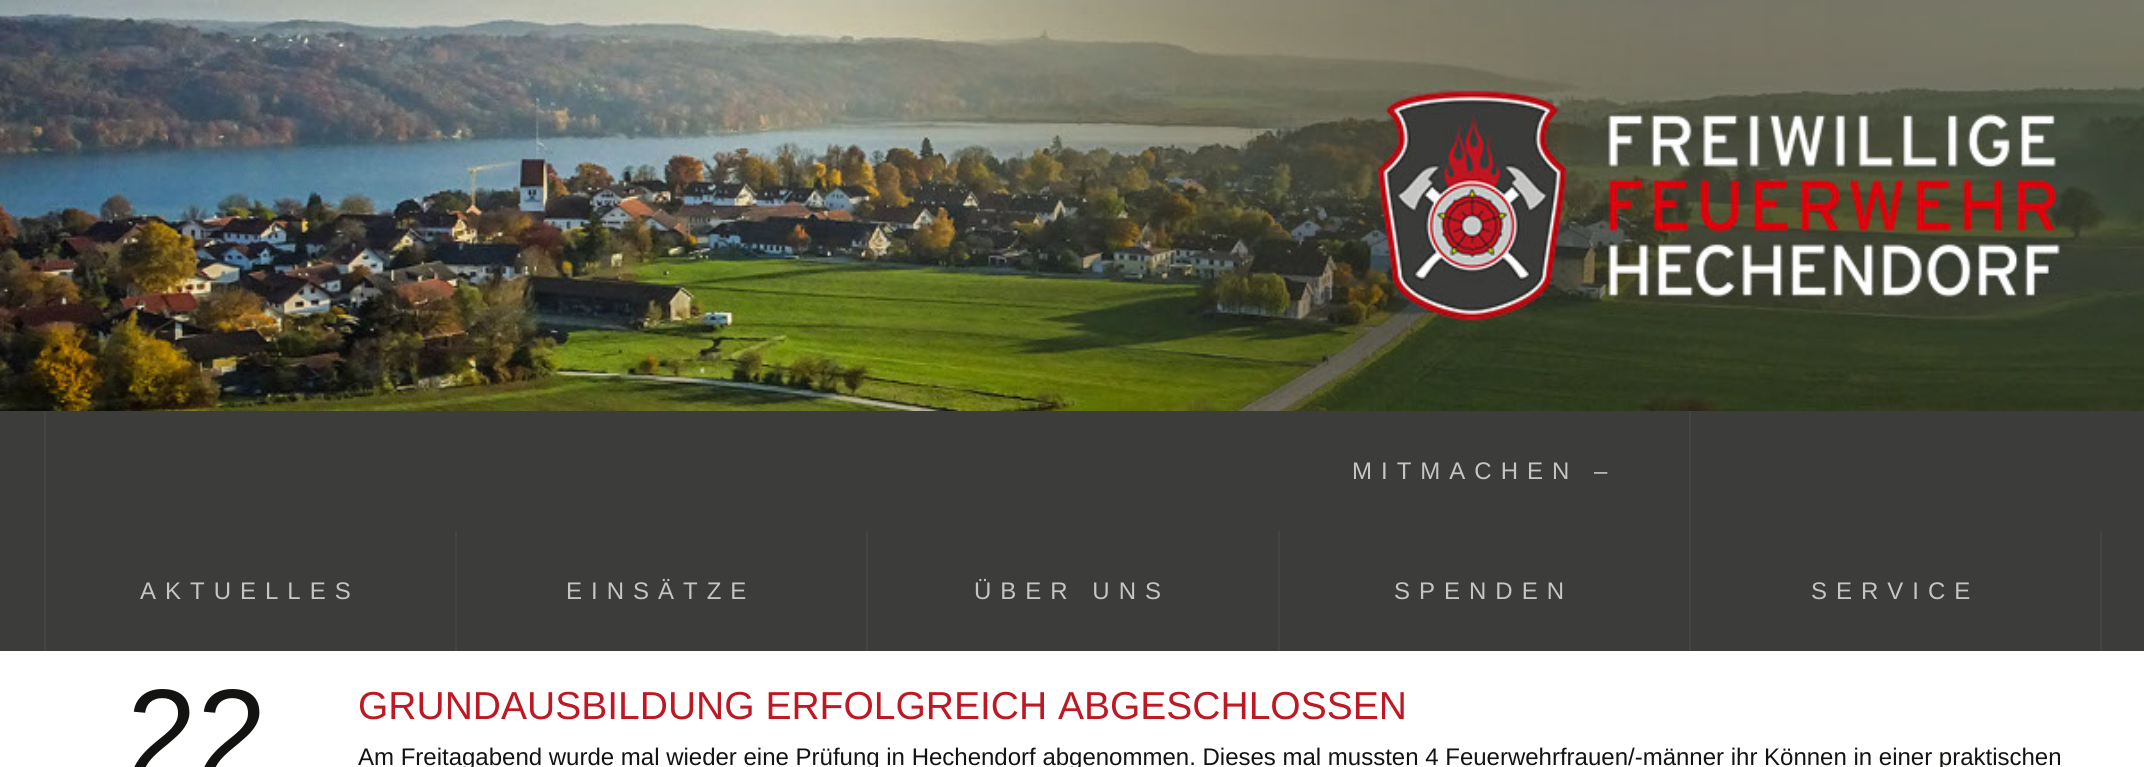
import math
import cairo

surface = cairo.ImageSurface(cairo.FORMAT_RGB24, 2144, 767)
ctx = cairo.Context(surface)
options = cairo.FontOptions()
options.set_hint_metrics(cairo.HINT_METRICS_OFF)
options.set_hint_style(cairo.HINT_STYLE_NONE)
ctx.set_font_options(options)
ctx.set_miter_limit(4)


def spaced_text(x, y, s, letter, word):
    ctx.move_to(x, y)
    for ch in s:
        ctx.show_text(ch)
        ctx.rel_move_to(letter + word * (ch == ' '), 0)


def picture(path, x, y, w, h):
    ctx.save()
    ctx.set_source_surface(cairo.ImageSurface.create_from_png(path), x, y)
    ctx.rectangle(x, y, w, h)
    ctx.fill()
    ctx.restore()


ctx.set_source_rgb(1, 1, 1)
ctx.paint()
picture("img1.png", 0, 0, 2144, 411)
ctx.set_source_rgb(0.235, 0.235, 0.231)
ctx.rectangle(0, 411, 2144, 240)
ctx.fill()
ctx.set_source_rgb(0.267, 0.267, 0.267)
ctx.rectangle(44, 411, 2, 240)
ctx.fill()
ctx.rectangle(455, 531, 2, 120)
ctx.fill()
ctx.select_font_face("Liberation Sans")
ctx.set_font_size(24)
ctx.set_source_rgb(0.776, 0.773, 0.769)
spaced_text(140, 599, "AKTUELLES", 9, 0)
ctx.set_source_rgb(0.267, 0.267, 0.267)
ctx.rectangle(866, 531, 2, 120)
ctx.fill()
ctx.set_source_rgb(0.776, 0.773, 0.769)
spaced_text(566, 599, "EINSÄTZE", 9, 0)
ctx.set_source_rgb(0.267, 0.267, 0.267)
ctx.rectangle(1278, 531, 2, 120)
ctx.fill()
ctx.set_source_rgb(0.776, 0.773, 0.769)
spaced_text(974, 599, "ÜBER UNS", 9, 0)
ctx.set_source_rgb(0.267, 0.267, 0.267)
ctx.rectangle(1689, 411, 2, 240)
ctx.fill()
ctx.set_source_rgb(0.776, 0.773, 0.769)
spaced_text(1352, 479, "MITMACHEN –", 9, 0)
spaced_text(1394, 599, "SPENDEN", 9, 0)
ctx.set_source_rgb(0.267, 0.267, 0.267)
ctx.rectangle(2100, 531, 2, 120)
ctx.fill()
ctx.set_source_rgb(0.776, 0.773, 0.769)
spaced_text(1811, 599, "SERVICE", 9, 0)
ctx.set_font_size(126)
ctx.set_source_rgb(0.078, 0.078, 0.071)
ctx.move_to(127, 777)
ctx.show_text("22")
ctx.set_font_size(39)
ctx.set_source_rgb(0.741, 0.094, 0.137)
ctx.move_to(358, 719)
ctx.show_text("GRUNDAUSBILDUNG ERFOLGREICH ABGESCHLOSSEN")
ctx.set_font_size(24)
ctx.set_source_rgb(0.078, 0.078, 0.071)
ctx.move_to(358, 765)
ctx.show_text("Am Freitagabend wurde mal wieder eine Prüfung in Hechendorf abgenommen. Dieses mal mussten 4 Feuerwehrfrauen/-männer ihr Können in einer praktischen")
surface.write_to_png("page.png")
